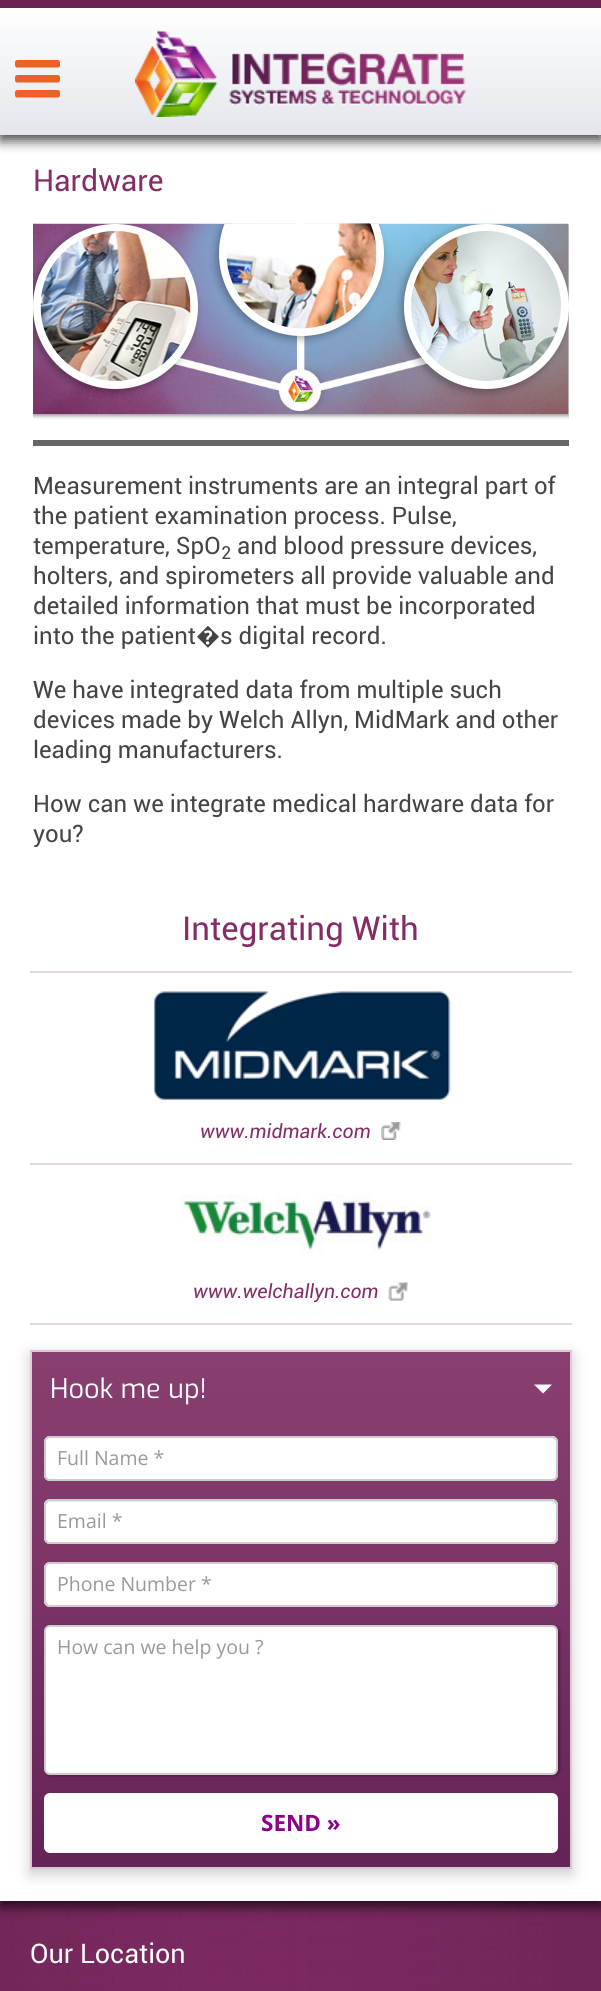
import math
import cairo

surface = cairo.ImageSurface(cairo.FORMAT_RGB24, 601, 1991)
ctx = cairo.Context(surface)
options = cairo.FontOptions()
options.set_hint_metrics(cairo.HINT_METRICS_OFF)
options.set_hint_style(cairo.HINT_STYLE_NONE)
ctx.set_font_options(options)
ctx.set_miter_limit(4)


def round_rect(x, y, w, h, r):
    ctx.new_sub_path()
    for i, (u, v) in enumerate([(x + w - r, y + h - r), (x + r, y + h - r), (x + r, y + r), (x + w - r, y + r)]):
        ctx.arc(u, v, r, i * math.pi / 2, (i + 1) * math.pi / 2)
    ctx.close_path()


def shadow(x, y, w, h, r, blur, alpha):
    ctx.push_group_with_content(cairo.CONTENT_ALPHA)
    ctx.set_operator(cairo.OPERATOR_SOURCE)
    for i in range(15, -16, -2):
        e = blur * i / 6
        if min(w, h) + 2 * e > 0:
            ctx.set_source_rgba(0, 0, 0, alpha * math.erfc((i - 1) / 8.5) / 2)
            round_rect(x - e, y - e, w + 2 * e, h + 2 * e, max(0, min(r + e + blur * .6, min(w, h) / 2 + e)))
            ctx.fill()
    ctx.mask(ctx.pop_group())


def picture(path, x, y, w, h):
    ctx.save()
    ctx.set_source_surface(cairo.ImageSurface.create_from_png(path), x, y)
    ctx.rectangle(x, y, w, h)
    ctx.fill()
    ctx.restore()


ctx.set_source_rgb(1, 1, 1)
ctx.paint()
picture("img12.png", 0, 1901, 601, 90)
ctx.set_source_rgb(0, 0, 0)
shadow(0, 141, 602, 1766, 0, 6, 0.7)
ctx.set_source_rgb(0.878, 0.878, 0.902)
ctx.rectangle(0, 135, 601, 3)
ctx.fill()
ctx.save()
ctx.rectangle(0, 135, 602, 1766)
ctx.clip()
ctx.set_source_rgb(0, 0, 0)
shadow(0, 135, 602, 1766, 3, 1.5, 0.3)
ctx.restore()
ctx.set_source_rgb(1, 1, 1)
ctx.new_path()
ctx.move_to(3, 135)
ctx.line_to(599, 135)
ctx.curve_to(600.5, 135, 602, 136.5, 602, 138)
ctx.line_to(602, 1901)
ctx.line_to(0, 1901)
ctx.line_to(0, 138)
ctx.curve_to(0, 136.5, 1.5, 135, 3, 135)
ctx.close_path()
ctx.fill()
ctx.set_source_rgb(0, 0, 0)
shadow(0, 6, 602, 135, 0, 6, 0.7)
gradient = cairo.LinearGradient(301, 7.5, 301, 135)
gradient.add_color_stop_rgba(0, 1, 1, 1, 1)
gradient.add_color_stop_rgba(1, 0.89, 0.902, 0.922, 1)
ctx.set_source(gradient)
ctx.rectangle(0, 8, 601, 127)
ctx.fill()
ctx.set_source_rgb(0.408, 0.133, 0.322)
ctx.rectangle(0, 0, 601, 8)
ctx.fill()
picture("img1.png", 15, 60, 45, 38)
picture("img2.png", 135, 30, 332, 87)
ctx.set_source_rgb(0.4, 0.4, 0.4)
ctx.rectangle(33, 440, 536, 6)
ctx.fill()
ctx.save()
ctx.rectangle(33, 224, 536, 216)
ctx.clip()
ctx.set_source_rgb(0, 0, 0)
shadow(33, 225, 536, 191, 0, 2, 0.4)
ctx.restore()
picture("img6.png", 33, 223, 536, 191)
ctx.save()
ctx.rectangle(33, 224, 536, 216)
ctx.clip()
ctx.set_source_rgb(0, 0, 0)
shadow(30, 227, 165, 165, 82.5, 4, 0.3)
ctx.restore()
ctx.set_source_rgb(1, 1, 1)
ctx.arc(115.5, 306.5, 82.5, 0, 2 * math.pi)
ctx.fill()
picture("img3.png", 40, 231, 151, 150)
ctx.save()
ctx.rectangle(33, 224, 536, 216)
ctx.clip()
ctx.set_source_rgb(0, 0, 0)
shadow(216, 174, 165, 165, 82.5, 4, 0.3)
ctx.restore()
ctx.save()
ctx.rectangle(33, 224, 536, 216)
ctx.clip()
ctx.arc(301.5, 253.5, 82.5, 0, 2 * math.pi)
ctx.fill()
ctx.restore()
picture("img4.png", 226, 223, 151, 106)
ctx.save()
ctx.rectangle(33, 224, 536, 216)
ctx.clip()
ctx.set_source_rgb(0, 0, 0)
shadow(401, 227, 165, 165, 82.5, 4, 0.3)
ctx.restore()
ctx.arc(486.5, 306.5, 82.5, 0, 2 * math.pi)
ctx.fill()
picture("img5.png", 411, 231, 150, 150)
ctx.select_font_face("Roboto")
ctx.set_font_size(30)
ctx.set_source_rgb(0.522, 0.173, 0.4)
ctx.move_to(33, 191)
ctx.show_text("Hardware")
ctx.set_font_size(24)
ctx.set_source_rgb(0.267, 0.267, 0.267)
ctx.move_to(33, 494)
ctx.show_text("Measurement instruments are an integral part of")
ctx.move_to(33, 524)
ctx.show_text("the patient examination process. Pulse,")
ctx.move_to(33, 554)
ctx.show_text("temperature, SpO")
ctx.set_font_size(18)
ctx.move_to(221, 559)
ctx.show_text("2")
ctx.set_font_size(24)
ctx.move_to(237, 554)
ctx.show_text("and blood pressure devices,")
ctx.move_to(33, 584)
ctx.show_text("holters, and spirometers all provide valuable and")
ctx.move_to(33, 614)
ctx.show_text("detailed information that must be incorporated")
ctx.move_to(33, 644)
ctx.show_text("into the patient")
ctx.select_font_face("Noto Sans Thin")
ctx.move_to(196, 644)
ctx.show_text("�")
ctx.select_font_face("Roboto")
ctx.move_to(220, 644)
ctx.show_text("s digital record.")
ctx.move_to(33, 698)
ctx.show_text("We have integrated data from multiple such")
ctx.move_to(33, 728)
ctx.show_text("devices made by Welch Allyn, MidMark and other")
ctx.move_to(33, 758)
ctx.show_text("leading manufacturers.")
ctx.move_to(33, 812)
ctx.show_text("How can we integrate medical hardware data for")
ctx.move_to(33, 842)
ctx.show_text("you?")
ctx.set_source_rgb(0.902, 0.831, 0.878)
ctx.rectangle(30, 971, 542, 2)
ctx.fill()
ctx.set_font_size(33)
ctx.set_source_rgb(0.522, 0.173, 0.4)
ctx.move_to(182, 940)
ctx.show_text("Integrating With")
ctx.set_source_rgb(0.902, 0.831, 0.878)
ctx.rectangle(30, 1163, 542, 2)
ctx.fill()
picture("img7.png", 153, 991, 298, 110)
picture("img8.png", 381, 1122, 20, 18)
ctx.select_font_face("Roboto", cairo.FONT_SLANT_ITALIC)
ctx.set_font_size(19.5)
ctx.set_source_rgb(0.522, 0.173, 0.4)
ctx.move_to(200, 1138)
ctx.show_text("www.midmark.com")
ctx.set_source_rgb(0.902, 0.831, 0.878)
ctx.rectangle(30, 1323, 542, 2)
ctx.fill()
picture("img9.png", 180, 1194, 252, 60)
picture("img10.png", 388, 1282, 20, 19)
ctx.set_source_rgb(0.522, 0.173, 0.4)
ctx.move_to(193, 1298)
ctx.show_text("www.welchallyn.com")
ctx.set_source_rgb(0, 0, 0)
shadow(30, 1355, 542, 519, 0, 7.5, 0.2)
ctx.set_source_rgb(0.369, 0.122, 0.322)
ctx.rectangle(30, 1350, 542, 519)
ctx.fill()
picture("img11.png", 30, 1351, 542, 518)
ctx.rectangle(31, 1351, 540, 517)
ctx.set_source_rgba(1, 1, 1, 0.75)
ctx.stroke()
ctx.select_font_face("Exo")
ctx.set_font_size(27)
ctx.set_source_rgb(1, 1, 1)
ctx.move_to(50, 1398)
ctx.show_text("Hook me up!")
ctx.new_path()
ctx.move_to(534, 1384.5)
ctx.line_to(552, 1384.5)
ctx.line_to(543, 1393.5)
ctx.close_path()
ctx.fill()
round_rect(44, 1436, 514, 45, 6)
ctx.fill()
ctx.set_source_rgb(0.925, 0.925, 0.925)
ctx.new_path()
ctx.move_to(50, 1438)
ctx.line_to(552, 1438)
ctx.curve_to(558, 1438, 556, 1452, 556, 1454)
ctx.line_to(556, 1477)
ctx.curve_to(557, 1476, 557, 1475, 557, 1474)
ctx.line_to(557, 1442)
ctx.curve_to(557, 1439, 555, 1437, 552, 1437)
ctx.line_to(50, 1437)
ctx.curve_to(47, 1437, 45, 1439, 45, 1442)
ctx.line_to(45, 1443)
ctx.curve_to(45, 1441, 47, 1438, 50, 1438)
ctx.close_path()
ctx.fill()
round_rect(45, 1437, 512, 43, 5)
ctx.set_source_rgb(0.8, 0.8, 0.8)
ctx.stroke()
ctx.select_font_face("Open Sans")
ctx.set_font_size(19.5)
ctx.set_source_rgb(0.6, 0.6, 0.6)
ctx.move_to(57, 1465)
ctx.show_text("Full Name *")
ctx.set_source_rgb(1, 1, 1)
round_rect(44, 1499, 514, 45, 6)
ctx.fill()
ctx.set_source_rgb(0.925, 0.925, 0.925)
ctx.new_path()
ctx.move_to(50, 1502)
ctx.line_to(552, 1502)
ctx.curve_to(554, 1502, 556, 1504, 556, 1506)
ctx.line_to(556, 1540)
ctx.curve_to(557, 1539, 557, 1538, 557, 1537)
ctx.line_to(557, 1505)
ctx.curve_to(557, 1502, 555, 1500, 552, 1500)
ctx.line_to(50, 1500)
ctx.curve_to(47, 1500, 45, 1502, 45, 1505)
ctx.line_to(45, 1506)
ctx.curve_to(45, 1504, 47, 1502, 50, 1502)
ctx.close_path()
ctx.fill()
round_rect(45, 1500, 512, 43, 5)
ctx.set_source_rgb(0.8, 0.8, 0.8)
ctx.stroke()
ctx.set_source_rgb(0.6, 0.6, 0.6)
ctx.move_to(57, 1528)
ctx.show_text("Email *")
ctx.set_source_rgb(1, 1, 1)
round_rect(44, 1562, 514, 45, 6)
ctx.fill()
ctx.set_source_rgb(0.925, 0.925, 0.925)
ctx.new_path()
ctx.move_to(50, 1564)
ctx.line_to(552, 1564)
ctx.curve_to(558, 1564, 556, 1578, 556, 1580)
ctx.line_to(556, 1603)
ctx.curve_to(557, 1602, 557, 1601, 557, 1600)
ctx.line_to(557, 1568)
ctx.curve_to(557, 1565, 555, 1563, 552, 1563)
ctx.line_to(50, 1563)
ctx.curve_to(47, 1563, 45, 1565, 45, 1568)
ctx.line_to(45, 1569)
ctx.curve_to(45, 1567, 47, 1564, 50, 1564)
ctx.close_path()
ctx.fill()
round_rect(45, 1563, 512, 43, 5)
ctx.set_source_rgb(0.8, 0.8, 0.8)
ctx.stroke()
ctx.set_source_rgb(0.6, 0.6, 0.6)
ctx.move_to(57, 1591)
ctx.show_text("Phone Number *")
ctx.set_source_rgb(0, 0, 0)
shadow(45, 1626, 515, 150, 6, 1.5, 0.3)
ctx.set_source_rgb(1, 1, 1)
round_rect(45, 1626, 512, 148, 5)
ctx.fill_preserve()
ctx.set_source_rgb(0.8, 0.8, 0.8)
ctx.stroke()
ctx.set_source_rgb(0.6, 0.6, 0.6)
ctx.move_to(57, 1654)
ctx.show_text("How can we help you ?")
ctx.set_source_rgb(1, 1, 1)
round_rect(44, 1793, 514, 60, 6)
ctx.fill()
ctx.select_font_face("Open Sans", cairo.FONT_SLANT_NORMAL, cairo.FONT_WEIGHT_BOLD)
ctx.set_font_size(22.5)
ctx.set_source_rgb(0.549, 0, 0.549)
ctx.move_to(261, 1831)
ctx.show_text("SEND »")
ctx.select_font_face("Roboto")
ctx.set_font_size(27)
ctx.set_source_rgb(1, 1, 1)
ctx.move_to(30, 1963)
ctx.show_text("Our Location")
surface.write_to_png("page.png")
